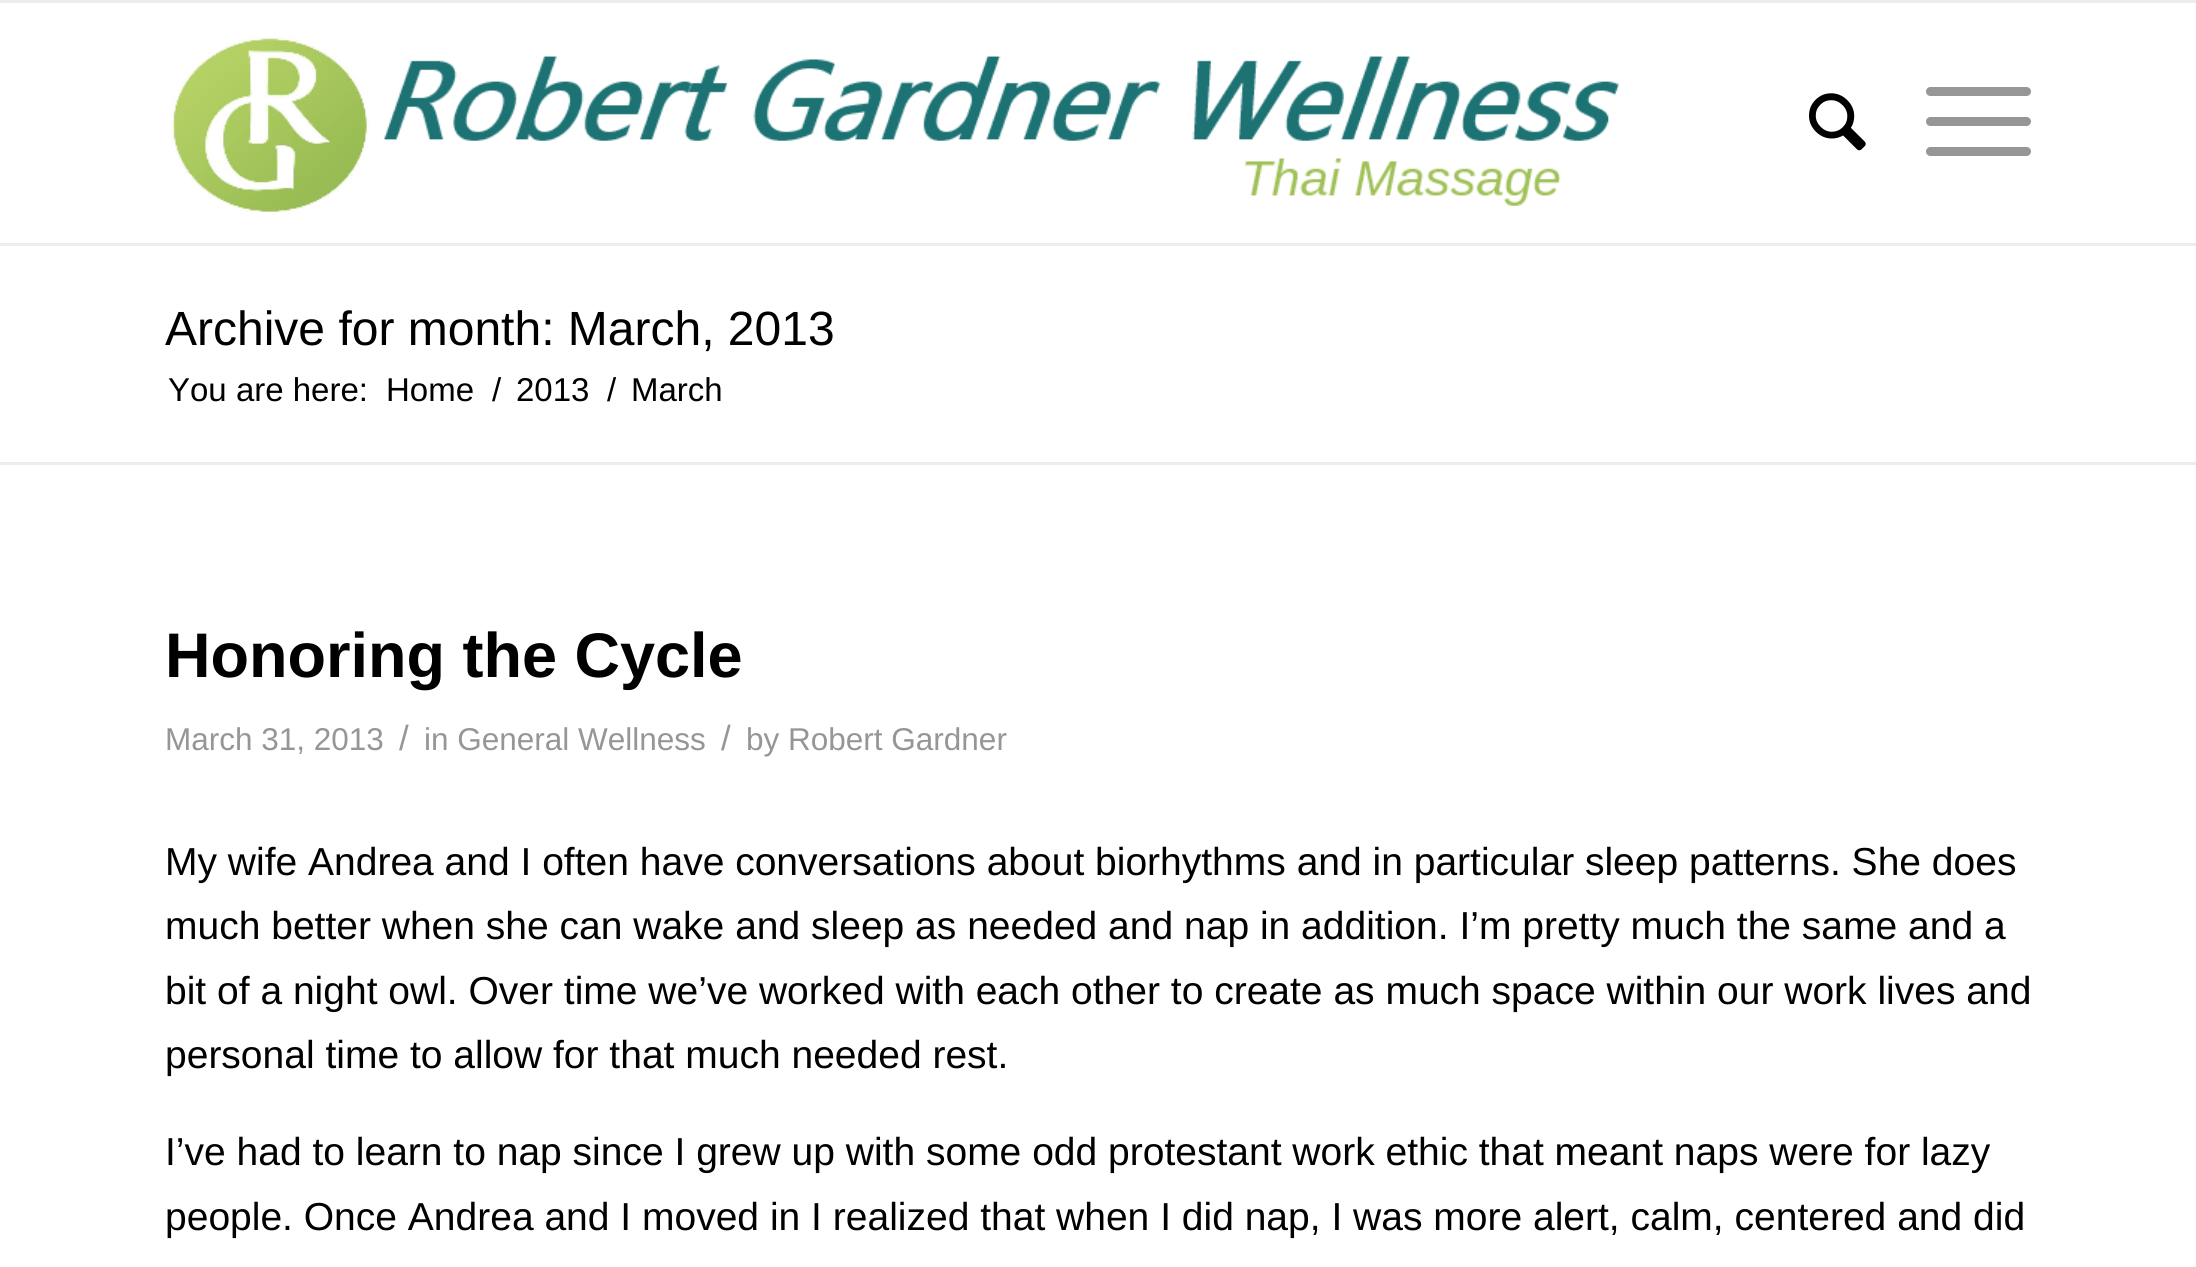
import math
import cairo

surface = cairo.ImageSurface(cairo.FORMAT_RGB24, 2196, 1267)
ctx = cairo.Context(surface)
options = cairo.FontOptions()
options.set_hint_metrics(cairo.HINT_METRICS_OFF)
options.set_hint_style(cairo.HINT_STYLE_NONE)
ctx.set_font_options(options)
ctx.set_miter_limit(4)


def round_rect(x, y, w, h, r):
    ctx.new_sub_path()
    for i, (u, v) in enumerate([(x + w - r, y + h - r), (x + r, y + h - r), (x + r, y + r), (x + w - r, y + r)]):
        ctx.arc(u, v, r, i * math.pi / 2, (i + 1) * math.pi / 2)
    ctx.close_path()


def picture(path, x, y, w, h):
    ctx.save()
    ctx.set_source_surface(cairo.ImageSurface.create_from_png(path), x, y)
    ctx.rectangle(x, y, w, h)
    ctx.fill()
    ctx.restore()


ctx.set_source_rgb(1, 1, 1)
ctx.paint()
ctx.set_source_rgb(0.922, 0.922, 0.922)
ctx.rectangle(0, 0, 2196, 3)
ctx.fill()
ctx.rectangle(0, 243, 2196, 3)
ctx.fill()
picture("img1.png", 171, 37, 1448, 175)
picture("img2.png", 1809, 93, 57, 58)
ctx.set_source_rgb(0.588, 0.588, 0.588)
round_rect(1926, 117, 105, 9, 4.5)
ctx.fill()
round_rect(1926, 87, 105, 9, 4.5)
ctx.fill()
round_rect(1926, 147, 105, 9, 4.5)
ctx.fill()
ctx.select_font_face("Liberation Sans")
ctx.set_font_size(48)
ctx.set_source_rgb(0, 0, 0)
ctx.move_to(165, 345)
ctx.show_text("Archive for month: March, 2013")
ctx.set_font_size(33)
ctx.move_to(168, 401)
ctx.show_text("You are here:")
ctx.move_to(386, 401)
ctx.show_text("Home")
ctx.move_to(492, 401)
ctx.show_text("/")
ctx.move_to(516, 401)
ctx.show_text("2013")
ctx.move_to(607, 401)
ctx.show_text("/")
ctx.move_to(631, 401)
ctx.show_text("March")
ctx.set_source_rgb(0.922, 0.922, 0.922)
ctx.rectangle(0, 462, 2196, 3)
ctx.fill()
ctx.select_font_face("Liberation Sans", cairo.FONT_SLANT_NORMAL, cairo.FONT_WEIGHT_BOLD)
ctx.set_font_size(63)
ctx.set_source_rgb(0, 0, 0)
ctx.move_to(165, 677)
ctx.show_text("Honoring the Cycle")
ctx.select_font_face("Liberation Sans")
ctx.set_font_size(31.5)
ctx.set_source_rgb(0.588, 0.588, 0.588)
ctx.move_to(165, 750)
ctx.show_text("March 31, 2013")
ctx.set_font_size(35)
ctx.move_to(399, 750)
ctx.show_text("/")
ctx.set_font_size(31.5)
ctx.move_to(424, 750)
ctx.show_text("in General Wellness")
ctx.set_font_size(35)
ctx.move_to(721, 750)
ctx.show_text("/")
ctx.set_font_size(31.5)
ctx.move_to(746, 750)
ctx.show_text("by Robert Gardner")
ctx.set_font_size(39)
ctx.set_source_rgb(0, 0, 0)
ctx.move_to(165, 875)
ctx.show_text("My wife Andrea and I often have conversations about biorhythms and in particular sleep patterns. She does")
ctx.move_to(165, 939)
ctx.show_text("much better when she can wake and sleep as needed and nap in addition. I’m pretty much the same and a")
ctx.move_to(165, 1004)
ctx.show_text("bit of a night owl. Over time we’ve worked with each other to create as much space within our work lives and")
ctx.move_to(165, 1068)
ctx.show_text("personal time to allow for that much needed rest.")
ctx.move_to(165, 1165)
ctx.show_text("I’ve had to learn to nap since I grew up with some odd protestant work ethic that meant naps were for lazy")
ctx.move_to(165, 1230)
ctx.show_text("people. Once Andrea and I moved in I realized that when I did nap, I was more alert, calm, centered and did")
surface.write_to_png("page.png")
